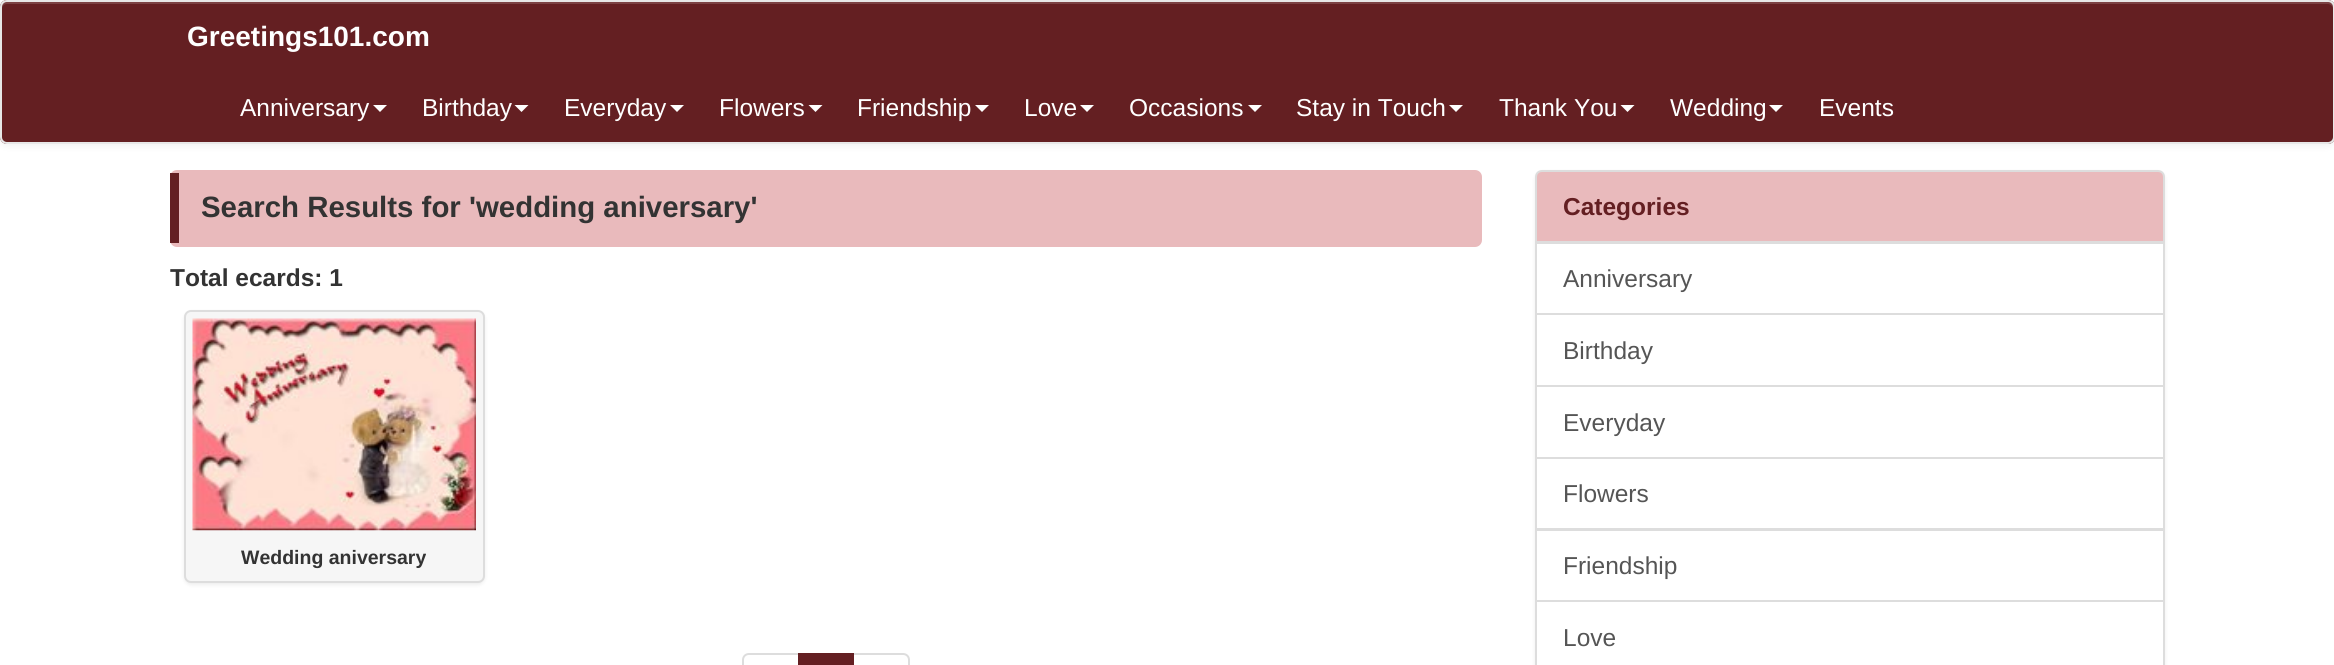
import math
import cairo

surface = cairo.ImageSurface(cairo.FORMAT_RGB24, 2334, 665)
ctx = cairo.Context(surface)
options = cairo.FontOptions()
options.set_hint_metrics(cairo.HINT_METRICS_OFF)
options.set_hint_style(cairo.HINT_STYLE_NONE)
ctx.set_font_options(options)
ctx.set_miter_limit(4)


def round_rect(x, y, w, h, r):
    ctx.new_sub_path()
    for i, (u, v) in enumerate([(x + w - r, y + h - r), (x + r, y + h - r), (x + r, y + r), (x + w - r, y + r)]):
        ctx.arc(u, v, r, i * math.pi / 2, (i + 1) * math.pi / 2)
    ctx.close_path()


def shadow(x, y, w, h, r, blur, alpha):
    ctx.push_group_with_content(cairo.CONTENT_ALPHA)
    ctx.set_operator(cairo.OPERATOR_SOURCE)
    for i in range(15, -16, -2):
        e = blur * i / 6
        if min(w, h) + 2 * e > 0:
            ctx.set_source_rgba(0, 0, 0, alpha * math.erfc((i - 1) / 8.5) / 2)
            round_rect(x - e, y - e, w + 2 * e, h + 2 * e, max(0, min(r + e + blur * .6, min(w, h) / 2 + e)))
            ctx.fill()
    ctx.mask(ctx.pop_group())


def picture(path, x, y, w, h):
    ctx.save()
    ctx.set_source_surface(cairo.ImageSurface.create_from_png(path), x, y)
    ctx.rectangle(x, y, w, h)
    ctx.fill()
    ctx.restore()


ctx.set_source_rgb(1, 1, 1)
ctx.paint()
ctx.set_source_rgb(0, 0, 0)
shadow(0, 2, 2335, 143, 7, 4.5, 0.07)
ctx.set_source_rgb(0.392, 0.122, 0.133)
round_rect(0, 0, 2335, 144, 7)
ctx.fill()
ctx.set_source_rgb(0.482, 0.255, 0.263)
ctx.new_path()
ctx.move_to(7, 4)
ctx.line_to(2328, 4)
ctx.curve_to(2330, 4, 2333, 6, 2333, 9)
ctx.line_to(2333, 7)
ctx.curve_to(2333, 4, 2331, 2, 2328, 2)
ctx.line_to(7, 2)
ctx.curve_to(4, 2, 2, 4, 2, 7)
ctx.line_to(2, 9)
ctx.curve_to(2, 6, 4, 4, 7, 4)
ctx.close_path()
ctx.fill()
round_rect(1, 1, 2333, 142, 6)
ctx.set_source_rgb(0.906, 0.906, 0.906)
ctx.stroke()
ctx.select_font_face("Liberation Sans", cairo.FONT_SLANT_NORMAL, cairo.FONT_WEIGHT_BOLD)
ctx.set_font_size(28)
ctx.set_source_rgb(1, 1, 1)
ctx.move_to(187, 46)
ctx.show_text("Greetings101.com")
ctx.select_font_face("Liberation Sans")
ctx.set_font_size(24.5)
ctx.move_to(240, 116)
ctx.show_text("Anniversary")
ctx.new_path()
ctx.move_to(373, 105)
ctx.line_to(387, 105)
ctx.line_to(380, 112)
ctx.close_path()
ctx.fill()
ctx.move_to(422, 116)
ctx.show_text("Birthday")
ctx.new_path()
ctx.move_to(514.5, 105)
ctx.line_to(528.5, 105)
ctx.line_to(521.5, 112)
ctx.close_path()
ctx.fill()
ctx.move_to(564, 116)
ctx.show_text("Everyday")
ctx.new_path()
ctx.move_to(670, 105)
ctx.line_to(684, 105)
ctx.line_to(677, 112)
ctx.close_path()
ctx.fill()
ctx.move_to(719, 116)
ctx.show_text("Flowers")
ctx.new_path()
ctx.move_to(808.5, 105)
ctx.line_to(822.5, 105)
ctx.line_to(815.5, 112)
ctx.close_path()
ctx.fill()
ctx.move_to(857, 116)
ctx.show_text("Friendship")
ctx.new_path()
ctx.move_to(975, 105)
ctx.line_to(989, 105)
ctx.line_to(982, 112)
ctx.close_path()
ctx.fill()
ctx.move_to(1024, 116)
ctx.show_text("Love")
ctx.new_path()
ctx.move_to(1080, 105)
ctx.line_to(1094, 105)
ctx.line_to(1087, 112)
ctx.close_path()
ctx.fill()
ctx.move_to(1129, 116)
ctx.show_text("Occasions")
ctx.new_path()
ctx.move_to(1248, 105)
ctx.line_to(1262, 105)
ctx.line_to(1255, 112)
ctx.close_path()
ctx.fill()
ctx.move_to(1296, 116)
ctx.show_text("Stay in Touch")
ctx.new_path()
ctx.move_to(1449, 105)
ctx.line_to(1463, 105)
ctx.line_to(1456, 112)
ctx.close_path()
ctx.fill()
ctx.move_to(1499, 116)
ctx.show_text("Thank You")
ctx.new_path()
ctx.move_to(1620.5, 105)
ctx.line_to(1634.5, 105)
ctx.line_to(1627.5, 112)
ctx.close_path()
ctx.fill()
ctx.move_to(1670, 116)
ctx.show_text("Wedding")
ctx.new_path()
ctx.move_to(1769, 105)
ctx.line_to(1783, 105)
ctx.line_to(1776, 112)
ctx.close_path()
ctx.fill()
ctx.move_to(1819, 116)
ctx.show_text("Events")
ctx.set_source_rgb(0.914, 0.729, 0.737)
round_rect(170, 170, 1312, 77, 7)
ctx.fill()
ctx.set_source_rgb(0.392, 0.122, 0.133)
ctx.rectangle(170, 173, 9, 70)
ctx.fill()
ctx.select_font_face("Liberation Sans", cairo.FONT_SLANT_NORMAL, cairo.FONT_WEIGHT_BOLD)
ctx.set_font_size(29.4)
ctx.set_source_rgb(0.2, 0.2, 0.2)
ctx.move_to(201, 217)
ctx.show_text("Search Results for 'wedding aniversary'")
ctx.set_font_size(24.5)
ctx.move_to(170, 286)
ctx.show_text("Total ecards: 1")
ctx.set_source_rgb(0, 0, 0)
shadow(184, 312, 301, 273, 7, 2, 0.07)
ctx.set_source_rgb(0.961, 0.961, 0.961)
round_rect(185, 311, 299, 271, 6)
ctx.fill_preserve()
ctx.set_source_rgb(0.867, 0.867, 0.867)
ctx.stroke()
picture("img1.png", 192, 318, 284, 213)
ctx.set_font_size(19.5)
ctx.set_source_rgb(0.2, 0.2, 0.2)
ctx.move_to(241, 564)
ctx.show_text("Wedding aniversary")
ctx.new_path()
ctx.move_to(749, 654)
ctx.line_to(799, 654)
ctx.line_to(799, 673)
ctx.line_to(749, 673)
ctx.curve_to(745.5, 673, 743, 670.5, 743, 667)
ctx.line_to(743, 660)
ctx.curve_to(743, 656.5, 745.5, 654, 749, 654)
ctx.close_path()
ctx.set_source_rgb(0.867, 0.867, 0.867)
ctx.stroke()
ctx.new_path()
ctx.move_to(853, 654)
ctx.line_to(903, 654)
ctx.curve_to(906.5, 654, 909, 656.5, 909, 660)
ctx.line_to(909, 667)
ctx.curve_to(909, 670.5, 906.5, 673, 903, 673)
ctx.line_to(853, 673)
ctx.close_path()
ctx.stroke()
ctx.set_source_rgb(0.392, 0.122, 0.133)
ctx.rectangle(798, 653, 56, 12)
ctx.fill()
ctx.set_source_rgb(0, 0, 0)
shadow(1535, 172, 630, 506, 7, 2, 0.07)
ctx.set_source_rgb(0.914, 0.729, 0.737)
ctx.new_path()
ctx.move_to(1542, 171)
ctx.line_to(2158, 171)
ctx.curve_to(2161.5, 171, 2164, 173.5, 2164, 177)
ctx.line_to(2164, 242)
ctx.line_to(1536, 242)
ctx.line_to(1536, 177)
ctx.curve_to(1536, 173.5, 1538.5, 171, 1542, 171)
ctx.close_path()
ctx.fill_preserve()
ctx.set_source_rgb(0.867, 0.867, 0.867)
ctx.stroke()
ctx.set_font_size(24.5)
ctx.set_source_rgb(0.392, 0.122, 0.133)
ctx.move_to(1563, 215)
ctx.show_text("Categories")
ctx.set_source_rgb(1, 1, 1)
ctx.rectangle(1536, 243, 628, 71)
ctx.fill_preserve()
ctx.set_source_rgb(0.867, 0.867, 0.867)
ctx.stroke()
ctx.select_font_face("Liberation Sans")
ctx.set_source_rgb(0.333, 0.333, 0.333)
ctx.move_to(1563, 287)
ctx.show_text("Anniversary")
ctx.set_source_rgb(1, 1, 1)
ctx.rectangle(1536, 314, 628, 72)
ctx.fill_preserve()
ctx.set_source_rgb(0.867, 0.867, 0.867)
ctx.stroke()
ctx.set_source_rgb(0.333, 0.333, 0.333)
ctx.move_to(1563, 359)
ctx.show_text("Birthday")
ctx.set_source_rgb(1, 1, 1)
ctx.rectangle(1536, 386, 628, 72)
ctx.fill_preserve()
ctx.set_source_rgb(0.867, 0.867, 0.867)
ctx.stroke()
ctx.set_source_rgb(0.333, 0.333, 0.333)
ctx.move_to(1563, 431)
ctx.show_text("Everyday")
ctx.set_source_rgb(1, 1, 1)
ctx.rectangle(1536, 458, 628, 71)
ctx.fill_preserve()
ctx.set_source_rgb(0.867, 0.867, 0.867)
ctx.stroke()
ctx.set_source_rgb(0.333, 0.333, 0.333)
ctx.move_to(1563, 502)
ctx.show_text("Flowers")
ctx.set_source_rgb(1, 1, 1)
ctx.rectangle(1536, 530, 628, 71)
ctx.fill_preserve()
ctx.set_source_rgb(0.867, 0.867, 0.867)
ctx.stroke()
ctx.set_source_rgb(0.333, 0.333, 0.333)
ctx.move_to(1563, 574)
ctx.show_text("Friendship")
ctx.set_source_rgb(1, 1, 1)
ctx.rectangle(1536, 601, 628, 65)
ctx.fill_preserve()
ctx.set_source_rgb(0.867, 0.867, 0.867)
ctx.stroke()
ctx.set_source_rgb(0.333, 0.333, 0.333)
ctx.move_to(1563, 646)
ctx.show_text("Love")
surface.write_to_png("page.png")
